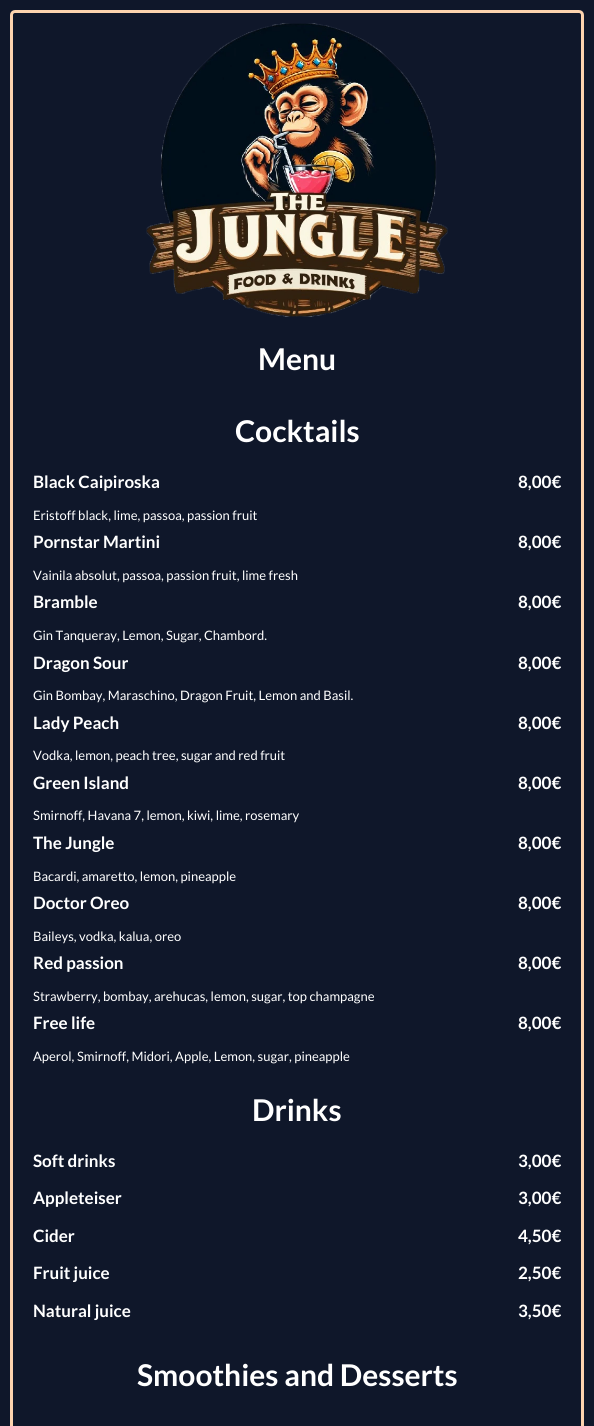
import math
import cairo

surface = cairo.ImageSurface(cairo.FORMAT_RGB24, 594, 1426)
ctx = cairo.Context(surface)
options = cairo.FontOptions()
options.set_hint_metrics(cairo.HINT_METRICS_OFF)
options.set_hint_style(cairo.HINT_STYLE_NONE)
ctx.set_font_options(options)
ctx.set_miter_limit(4)


def round_rect(x, y, w, h, r):
    ctx.new_sub_path()
    for i, (u, v) in enumerate([(x + w - r, y + h - r), (x + r, y + h - r), (x + r, y + r), (x + w - r, y + r)]):
        ctx.arc(u, v, r, i * math.pi / 2, (i + 1) * math.pi / 2)
    ctx.close_path()


def picture(path, x, y, w, h):
    ctx.save()
    ctx.set_source_surface(cairo.ImageSurface.create_from_png(path), x, y)
    ctx.rectangle(x, y, w, h)
    ctx.fill()
    ctx.restore()


ctx.set_source_rgb(0.059, 0.09, 0.165)
ctx.paint()
round_rect(11.5, 11.5, 571, 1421, 3.5)
ctx.set_source_rgb(0.988, 0.827, 0.682)
ctx.set_line_width(3)
ctx.stroke()
picture("img1.png", 146, 23, 302, 294)
ctx.select_font_face("Lato", cairo.FONT_SLANT_NORMAL, cairo.FONT_WEIGHT_BOLD)
ctx.set_font_size(30)
ctx.set_source_rgb(1, 1, 1)
ctx.move_to(258, 370)
ctx.show_text("Menu")
ctx.move_to(235, 442)
ctx.show_text("Cocktails")
ctx.set_font_size(17)
ctx.move_to(33, 488)
ctx.show_text("Black Caipiroska")
ctx.move_to(518, 488)
ctx.show_text("8,00€")
ctx.select_font_face("Lato")
ctx.set_font_size(13)
ctx.move_to(33, 520)
ctx.show_text("Eristoff black, lime, passoa, passion fruit")
ctx.select_font_face("Lato", cairo.FONT_SLANT_NORMAL, cairo.FONT_WEIGHT_BOLD)
ctx.set_font_size(17)
ctx.move_to(33, 548)
ctx.show_text("Pornstar Martini")
ctx.move_to(518, 548)
ctx.show_text("8,00€")
ctx.select_font_face("Lato")
ctx.set_font_size(13)
ctx.move_to(33, 580)
ctx.show_text("Vainila absolut, passoa, passion fruit, lime fresh")
ctx.select_font_face("Lato", cairo.FONT_SLANT_NORMAL, cairo.FONT_WEIGHT_BOLD)
ctx.set_font_size(17)
ctx.move_to(33, 608)
ctx.show_text("Bramble")
ctx.move_to(518, 608)
ctx.show_text("8,00€")
ctx.select_font_face("Lato")
ctx.set_font_size(13)
ctx.move_to(33, 640)
ctx.show_text("Gin Tanqueray, Lemon, Sugar, Chambord.")
ctx.select_font_face("Lato", cairo.FONT_SLANT_NORMAL, cairo.FONT_WEIGHT_BOLD)
ctx.set_font_size(17)
ctx.move_to(33, 669)
ctx.show_text("Dragon Sour")
ctx.move_to(518, 669)
ctx.show_text("8,00€")
ctx.select_font_face("Lato")
ctx.set_font_size(13)
ctx.move_to(33, 700)
ctx.show_text("Gin Bombay, Maraschino, Dragon Fruit, Lemon and Basil.")
ctx.select_font_face("Lato", cairo.FONT_SLANT_NORMAL, cairo.FONT_WEIGHT_BOLD)
ctx.set_font_size(17)
ctx.move_to(33, 729)
ctx.show_text("Lady Peach")
ctx.move_to(518, 729)
ctx.show_text("8,00€")
ctx.select_font_face("Lato")
ctx.set_font_size(13)
ctx.move_to(33, 760)
ctx.show_text("Vodka, lemon, peach tree, sugar and red fruit")
ctx.select_font_face("Lato", cairo.FONT_SLANT_NORMAL, cairo.FONT_WEIGHT_BOLD)
ctx.set_font_size(17)
ctx.move_to(33, 789)
ctx.show_text("Green Island")
ctx.move_to(518, 789)
ctx.show_text("8,00€")
ctx.select_font_face("Lato")
ctx.set_font_size(13)
ctx.move_to(33, 820)
ctx.show_text("Smirnoff, Havana 7, lemon, kiwi, lime, rosemary")
ctx.select_font_face("Lato", cairo.FONT_SLANT_NORMAL, cairo.FONT_WEIGHT_BOLD)
ctx.set_font_size(17)
ctx.move_to(33, 849)
ctx.show_text("The Jungle")
ctx.move_to(518, 849)
ctx.show_text("8,00€")
ctx.select_font_face("Lato")
ctx.set_font_size(13)
ctx.move_to(33, 881)
ctx.show_text("Bacardi, amaretto, lemon, pineapple")
ctx.select_font_face("Lato", cairo.FONT_SLANT_NORMAL, cairo.FONT_WEIGHT_BOLD)
ctx.set_font_size(17)
ctx.move_to(33, 909)
ctx.show_text("Doctor Oreo")
ctx.move_to(518, 909)
ctx.show_text("8,00€")
ctx.select_font_face("Lato")
ctx.set_font_size(13)
ctx.move_to(33, 941)
ctx.show_text("Baileys, vodka, kalua, oreo")
ctx.select_font_face("Lato", cairo.FONT_SLANT_NORMAL, cairo.FONT_WEIGHT_BOLD)
ctx.set_font_size(17)
ctx.move_to(33, 969)
ctx.show_text("Red passion")
ctx.move_to(518, 969)
ctx.show_text("8,00€")
ctx.select_font_face("Lato")
ctx.set_font_size(13)
ctx.move_to(33, 1001)
ctx.show_text("Strawberry, bombay, arehucas, lemon, sugar, top champagne")
ctx.select_font_face("Lato", cairo.FONT_SLANT_NORMAL, cairo.FONT_WEIGHT_BOLD)
ctx.set_font_size(17)
ctx.move_to(33, 1029)
ctx.show_text("Free life")
ctx.move_to(518, 1029)
ctx.show_text("8,00€")
ctx.select_font_face("Lato")
ctx.set_font_size(13)
ctx.move_to(33, 1061)
ctx.show_text("Aperol, Smirnoff, Midori, Apple, Lemon, sugar, pineapple")
ctx.select_font_face("Lato", cairo.FONT_SLANT_NORMAL, cairo.FONT_WEIGHT_BOLD)
ctx.set_font_size(30)
ctx.move_to(252, 1121)
ctx.show_text("Drinks")
ctx.set_font_size(17)
ctx.move_to(33, 1167)
ctx.show_text("Soft drinks")
ctx.move_to(518, 1167)
ctx.show_text("3,00€")
ctx.move_to(33, 1204)
ctx.show_text("Appleteiser")
ctx.move_to(518, 1204)
ctx.show_text("3,00€")
ctx.move_to(33, 1242)
ctx.show_text("Cider")
ctx.move_to(518, 1242)
ctx.show_text("4,50€")
ctx.move_to(33, 1279)
ctx.show_text("Fruit juice")
ctx.move_to(518, 1279)
ctx.show_text("2,50€")
ctx.move_to(33, 1317)
ctx.show_text("Natural juice")
ctx.move_to(518, 1317)
ctx.show_text("3,50€")
ctx.set_font_size(30)
ctx.move_to(137, 1386)
ctx.show_text("Smoothies and Desserts")
surface.write_to_png("page.png")
